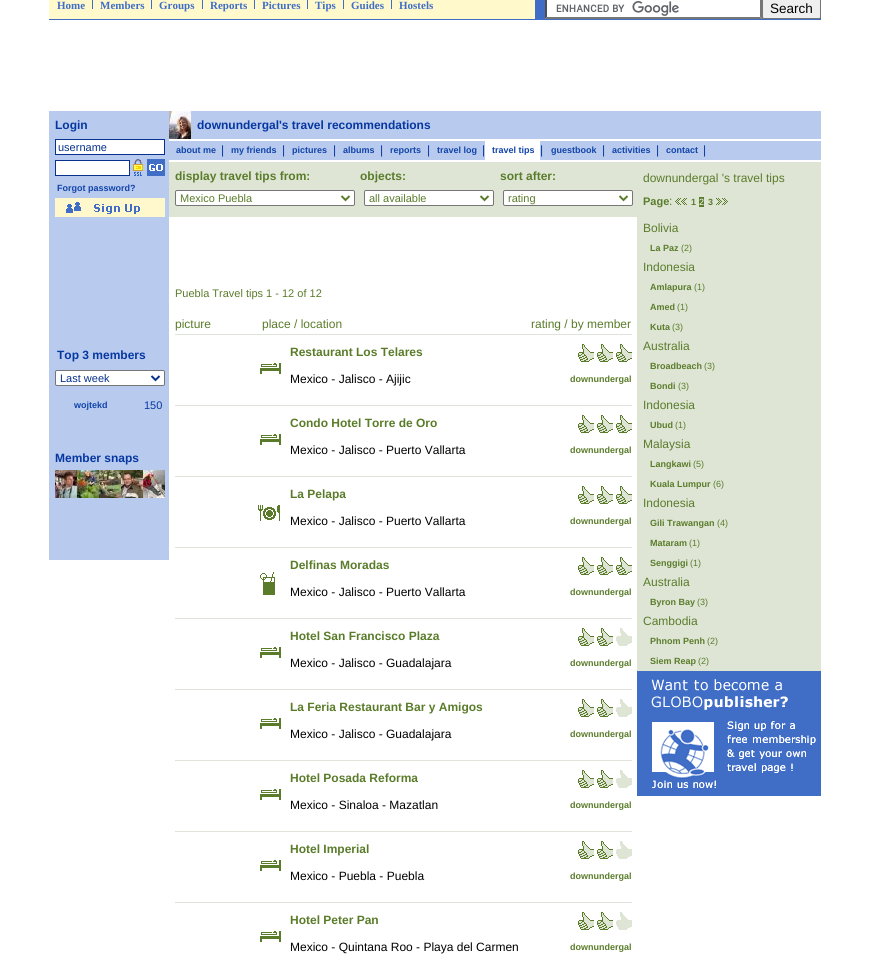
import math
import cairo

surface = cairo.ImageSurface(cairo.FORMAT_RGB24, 869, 955)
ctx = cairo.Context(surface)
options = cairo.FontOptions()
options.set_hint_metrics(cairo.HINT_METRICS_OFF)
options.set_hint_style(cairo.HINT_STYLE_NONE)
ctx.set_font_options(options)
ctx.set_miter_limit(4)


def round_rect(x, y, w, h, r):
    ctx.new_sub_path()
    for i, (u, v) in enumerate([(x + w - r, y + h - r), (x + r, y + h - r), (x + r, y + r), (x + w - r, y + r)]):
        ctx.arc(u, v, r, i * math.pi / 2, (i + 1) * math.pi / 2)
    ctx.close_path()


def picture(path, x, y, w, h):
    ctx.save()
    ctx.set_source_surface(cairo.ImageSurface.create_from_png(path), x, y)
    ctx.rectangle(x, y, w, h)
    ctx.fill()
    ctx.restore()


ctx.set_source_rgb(1, 1, 1)
ctx.paint()
ctx.set_source_rgb(0.251, 0.431, 0.776)
ctx.rectangle(49, 0, 772, 20)
ctx.fill()
ctx.set_source_rgb(1, 0.973, 0.8)
ctx.rectangle(49, 0, 486, 19)
ctx.fill()
ctx.select_font_face("Liberation Serif", cairo.FONT_SLANT_NORMAL, cairo.FONT_WEIGHT_BOLD)
ctx.set_font_size(11)
ctx.set_source_rgb(0.251, 0.431, 0.776)
ctx.move_to(57, 9)
ctx.show_text("Home")
ctx.rectangle(92, 0, 1, 9)
ctx.fill()
ctx.move_to(100, 9)
ctx.show_text("Members")
ctx.rectangle(151, 0, 1, 9)
ctx.fill()
ctx.move_to(159, 9)
ctx.show_text("Groups")
ctx.rectangle(202, 0, 1, 9)
ctx.fill()
ctx.move_to(210, 9)
ctx.show_text("Reports")
ctx.rectangle(254, 0, 1, 9)
ctx.fill()
ctx.move_to(262, 9)
ctx.show_text("Pictures")
ctx.rectangle(307, 0, 1, 9)
ctx.fill()
ctx.move_to(315, 9)
ctx.show_text("Tips")
ctx.rectangle(343, 0, 1, 9)
ctx.fill()
ctx.move_to(351, 9)
ctx.show_text("Guides")
ctx.rectangle(391, 0, 1, 9)
ctx.fill()
ctx.move_to(399, 9)
ctx.show_text("Hostels")
ctx.set_source_rgb(1, 1, 1)
ctx.rectangle(545, 0, 217, 19)
ctx.fill()
picture("img1.png", 556, 1, 123, 15)
ctx.set_source_rgb(0.463, 0.463, 0.463)
ctx.new_path()
ctx.move_to(762, -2)
ctx.line_to(762, 19)
ctx.line_to(760, 17)
ctx.line_to(760, 0)
ctx.close_path()
ctx.fill()
ctx.new_path()
ctx.move_to(762, 19)
ctx.line_to(545, 19)
ctx.line_to(547, 17)
ctx.line_to(760, 17)
ctx.close_path()
ctx.fill()
ctx.set_source_rgb(0.31, 0.31, 0.31)
ctx.new_path()
ctx.move_to(545, 19)
ctx.line_to(545, -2)
ctx.line_to(547, 0)
ctx.line_to(547, 17)
ctx.close_path()
ctx.fill()
ctx.set_source_rgb(0.937, 0.937, 0.937)
round_rect(762.5, -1.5, 58, 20, 1.5)
ctx.fill_preserve()
ctx.set_source_rgb(0.463, 0.463, 0.463)
ctx.set_line_width(1)
ctx.stroke()
ctx.select_font_face("Liberation Sans")
ctx.set_font_size(13.5)
ctx.set_source_rgb(0, 0, 0)
ctx.move_to(770, 13)
ctx.show_text("Search")
ctx.set_source_rgb(0.722, 0.792, 0.933)
ctx.rectangle(49, 111, 120, 449)
ctx.fill()
ctx.select_font_face("Liberation Sans", cairo.FONT_SLANT_NORMAL, cairo.FONT_WEIGHT_BOLD)
ctx.set_font_size(12)
ctx.set_source_rgb(0.027, 0.216, 0.631)
ctx.move_to(55, 129)
ctx.show_text("Login")
ctx.set_source_rgb(1, 1, 1)
ctx.rectangle(55.5, 139.5, 109, 15)
ctx.fill_preserve()
ctx.set_source_rgb(0.031, 0.192, 0.549)
ctx.stroke()
ctx.select_font_face("Liberation Sans")
ctx.set_font_size(11)
ctx.move_to(58, 151)
ctx.show_text("username")
ctx.set_source_rgb(1, 1, 1)
ctx.rectangle(55.5, 160.5, 74, 15)
ctx.fill_preserve()
ctx.set_source_rgb(0.031, 0.192, 0.549)
ctx.stroke()
picture("img2.png", 133, 159, 10, 17)
picture("img3.png", 147, 159, 18, 17)
ctx.select_font_face("Liberation Sans", cairo.FONT_SLANT_NORMAL, cairo.FONT_WEIGHT_BOLD)
ctx.set_font_size(9)
ctx.set_source_rgb(0.067, 0.267, 0.667)
ctx.move_to(57, 191)
ctx.show_text("Forgot password?")
picture("img4.png", 55, 198, 110, 19)
ctx.set_font_size(12)
ctx.set_source_rgb(0.027, 0.216, 0.631)
ctx.move_to(57, 359)
ctx.show_text("Top 3 members")
ctx.set_source_rgb(1, 1, 1)
round_rect(55.5, 370.5, 109, 15, 1.5)
ctx.fill_preserve()
ctx.set_source_rgb(0.463, 0.463, 0.463)
ctx.stroke()
ctx.new_path()
ctx.move_to(151.5, 376)
ctx.line_to(155.5, 380)
ctx.line_to(159.5, 376)
ctx.set_source_rgb(0.031, 0.192, 0.549)
ctx.set_line_width(2)
ctx.stroke()
ctx.select_font_face("Liberation Sans")
ctx.set_font_size(11)
ctx.move_to(60, 382)
ctx.show_text("Last week")
ctx.select_font_face("Liberation Sans", cairo.FONT_SLANT_NORMAL, cairo.FONT_WEIGHT_BOLD)
ctx.set_font_size(9)
ctx.set_source_rgb(0.067, 0.267, 0.667)
ctx.move_to(74, 408)
ctx.show_text("wojtekd")
ctx.select_font_face("Liberation Sans")
ctx.set_font_size(11)
ctx.set_source_rgb(0.027, 0.216, 0.631)
ctx.move_to(144, 409)
ctx.show_text("150")
ctx.select_font_face("Liberation Sans", cairo.FONT_SLANT_NORMAL, cairo.FONT_WEIGHT_BOLD)
ctx.set_font_size(12)
ctx.move_to(55, 462)
ctx.show_text("Member snaps")
picture("img5.png", 55, 470, 22, 28)
picture("img6.png", 77, 470, 22, 28)
picture("img7.png", 99, 470, 22, 28)
picture("img8.png", 121, 470, 22, 28)
picture("img9.png", 143, 470, 22, 28)
ctx.set_source_rgb(0.722, 0.792, 0.933)
ctx.rectangle(191, 111, 630, 28)
ctx.fill()
picture("img10.png", 169, 111, 22, 28)
ctx.set_source_rgb(0.027, 0.216, 0.631)
ctx.move_to(197, 129)
ctx.show_text("downundergal's travel recommendations")
ctx.set_source_rgb(0.722, 0.792, 0.933)
ctx.rectangle(169, 141, 652, 19)
ctx.fill()
ctx.set_font_size(9)
ctx.set_source_rgb(0.067, 0.267, 0.667)
ctx.move_to(176, 153)
ctx.show_text("about me")
ctx.select_font_face("Liberation Sans")
ctx.set_font_size(12)
ctx.set_source_rgb(0.027, 0.216, 0.631)
ctx.move_to(221, 154)
ctx.show_text("|")
ctx.select_font_face("Liberation Sans", cairo.FONT_SLANT_NORMAL, cairo.FONT_WEIGHT_BOLD)
ctx.set_font_size(9)
ctx.set_source_rgb(0.067, 0.267, 0.667)
ctx.move_to(231, 153)
ctx.show_text("my friends")
ctx.select_font_face("Liberation Sans")
ctx.set_font_size(12)
ctx.set_source_rgb(0.027, 0.216, 0.631)
ctx.move_to(282, 154)
ctx.show_text("|")
ctx.select_font_face("Liberation Sans", cairo.FONT_SLANT_NORMAL, cairo.FONT_WEIGHT_BOLD)
ctx.set_font_size(9)
ctx.set_source_rgb(0.067, 0.267, 0.667)
ctx.move_to(292, 153)
ctx.show_text("pictures")
ctx.select_font_face("Liberation Sans")
ctx.set_font_size(12)
ctx.set_source_rgb(0.027, 0.216, 0.631)
ctx.move_to(333, 154)
ctx.show_text("|")
ctx.select_font_face("Liberation Sans", cairo.FONT_SLANT_NORMAL, cairo.FONT_WEIGHT_BOLD)
ctx.set_font_size(9)
ctx.set_source_rgb(0.067, 0.267, 0.667)
ctx.move_to(343, 153)
ctx.show_text("albums")
ctx.select_font_face("Liberation Sans")
ctx.set_font_size(12)
ctx.set_source_rgb(0.027, 0.216, 0.631)
ctx.move_to(380, 154)
ctx.show_text("|")
ctx.select_font_face("Liberation Sans", cairo.FONT_SLANT_NORMAL, cairo.FONT_WEIGHT_BOLD)
ctx.set_font_size(9)
ctx.set_source_rgb(0.067, 0.267, 0.667)
ctx.move_to(390, 153)
ctx.show_text("reports")
ctx.select_font_face("Liberation Sans")
ctx.set_font_size(12)
ctx.set_source_rgb(0.027, 0.216, 0.631)
ctx.move_to(427, 154)
ctx.show_text("|")
ctx.select_font_face("Liberation Sans", cairo.FONT_SLANT_NORMAL, cairo.FONT_WEIGHT_BOLD)
ctx.set_font_size(9)
ctx.set_source_rgb(0.067, 0.267, 0.667)
ctx.move_to(437, 153)
ctx.show_text("travel log")
ctx.select_font_face("Liberation Sans")
ctx.set_font_size(12)
ctx.set_source_rgb(0.027, 0.216, 0.631)
ctx.move_to(482, 154)
ctx.show_text("|")
ctx.set_source_rgb(1, 1, 1)
ctx.rectangle(485, 141, 55, 19)
ctx.fill()
ctx.select_font_face("Liberation Sans", cairo.FONT_SLANT_NORMAL, cairo.FONT_WEIGHT_BOLD)
ctx.set_font_size(9)
ctx.set_source_rgb(0.067, 0.267, 0.667)
ctx.move_to(492, 153)
ctx.show_text("travel tips")
ctx.select_font_face("Liberation Sans")
ctx.set_font_size(12)
ctx.set_source_rgb(0.027, 0.216, 0.631)
ctx.move_to(540, 154)
ctx.show_text("|")
ctx.select_font_face("Liberation Sans", cairo.FONT_SLANT_NORMAL, cairo.FONT_WEIGHT_BOLD)
ctx.set_font_size(9)
ctx.set_source_rgb(0.067, 0.267, 0.667)
ctx.move_to(551, 153)
ctx.show_text("guestbook")
ctx.select_font_face("Liberation Sans")
ctx.set_font_size(12)
ctx.set_source_rgb(0.027, 0.216, 0.631)
ctx.move_to(602, 154)
ctx.show_text("|")
ctx.select_font_face("Liberation Sans", cairo.FONT_SLANT_NORMAL, cairo.FONT_WEIGHT_BOLD)
ctx.set_font_size(9)
ctx.set_source_rgb(0.067, 0.267, 0.667)
ctx.move_to(612, 153)
ctx.show_text("activities")
ctx.select_font_face("Liberation Sans")
ctx.set_font_size(12)
ctx.set_source_rgb(0.027, 0.216, 0.631)
ctx.move_to(656, 154)
ctx.show_text("|")
ctx.select_font_face("Liberation Sans", cairo.FONT_SLANT_NORMAL, cairo.FONT_WEIGHT_BOLD)
ctx.set_font_size(9)
ctx.set_source_rgb(0.067, 0.267, 0.667)
ctx.move_to(666, 153)
ctx.show_text("contact")
ctx.select_font_face("Liberation Sans")
ctx.set_font_size(12)
ctx.set_source_rgb(0.027, 0.216, 0.631)
ctx.move_to(703, 154)
ctx.show_text("|")
ctx.set_source_rgb(0.871, 0.898, 0.835)
ctx.rectangle(169, 162, 468, 28)
ctx.fill()
ctx.select_font_face("Liberation Sans", cairo.FONT_SLANT_NORMAL, cairo.FONT_WEIGHT_BOLD)
ctx.set_source_rgb(0.353, 0.486, 0.165)
ctx.move_to(175, 180)
ctx.show_text("display travel tips from:")
ctx.move_to(360, 180)
ctx.show_text("objects:")
ctx.move_to(500, 180)
ctx.show_text("sort after:")
ctx.set_source_rgb(0.871, 0.898, 0.835)
ctx.rectangle(169, 190, 468, 27)
ctx.fill()
ctx.set_source_rgb(1, 1, 1)
round_rect(175.5, 190.5, 179, 15, 1.5)
ctx.fill_preserve()
ctx.set_source_rgb(0.463, 0.463, 0.463)
ctx.set_line_width(1)
ctx.stroke()
ctx.new_path()
ctx.move_to(341.5, 196)
ctx.line_to(345.5, 200)
ctx.line_to(349.5, 196)
ctx.set_source_rgb(0.353, 0.486, 0.165)
ctx.set_line_width(2)
ctx.stroke()
ctx.select_font_face("Liberation Sans")
ctx.set_font_size(11)
ctx.move_to(180, 202)
ctx.show_text("Mexico Puebla")
ctx.set_source_rgb(1, 1, 1)
round_rect(364.5, 190.5, 129, 15, 1.5)
ctx.fill_preserve()
ctx.set_source_rgb(0.463, 0.463, 0.463)
ctx.set_line_width(1)
ctx.stroke()
ctx.new_path()
ctx.move_to(480.5, 196)
ctx.line_to(484.5, 200)
ctx.line_to(488.5, 196)
ctx.set_source_rgb(0.353, 0.486, 0.165)
ctx.set_line_width(2)
ctx.stroke()
ctx.move_to(369, 202)
ctx.show_text("all available")
ctx.set_source_rgb(1, 1, 1)
round_rect(503.5, 190.5, 129, 15, 1.5)
ctx.fill_preserve()
ctx.set_source_rgb(0.463, 0.463, 0.463)
ctx.set_line_width(1)
ctx.stroke()
ctx.new_path()
ctx.move_to(619.5, 196)
ctx.line_to(623.5, 200)
ctx.line_to(627.5, 196)
ctx.set_source_rgb(0.353, 0.486, 0.165)
ctx.set_line_width(2)
ctx.stroke()
ctx.move_to(508, 202)
ctx.show_text("rating")
ctx.move_to(175, 297)
ctx.show_text("Puebla Travel tips 1 - 12 of 12")
ctx.set_font_size(12)
ctx.move_to(175, 328)
ctx.show_text("picture")
ctx.move_to(262, 328)
ctx.show_text("place / location")
ctx.move_to(531, 328)
ctx.show_text("rating / by member")
ctx.set_source_rgb(0.878, 0.89, 0.855)
ctx.rectangle(175, 334, 457, 1)
ctx.fill()
ctx.select_font_face("Liberation Sans", cairo.FONT_SLANT_NORMAL, cairo.FONT_WEIGHT_BOLD)
ctx.set_source_rgb(0.353, 0.486, 0.165)
ctx.move_to(290, 356)
ctx.show_text("Restaurant Los Telares")
picture("img11.png", 578, 344, 54, 18)
picture("img12.png", 260, 363, 21, 11)
ctx.select_font_face("Liberation Sans")
ctx.set_source_rgb(0, 0, 0)
ctx.move_to(290, 383)
ctx.show_text("Mexico - Jalisco - Ajijic")
ctx.select_font_face("Liberation Sans", cairo.FONT_SLANT_NORMAL, cairo.FONT_WEIGHT_BOLD)
ctx.set_font_size(9)
ctx.set_source_rgb(0.353, 0.486, 0.165)
ctx.move_to(570, 382)
ctx.show_text("downundergal")
ctx.set_source_rgb(0.878, 0.89, 0.855)
ctx.rectangle(175, 405, 457, 1)
ctx.fill()
ctx.set_font_size(12)
ctx.set_source_rgb(0.353, 0.486, 0.165)
ctx.move_to(290, 427)
ctx.show_text("Condo Hotel Torre de Oro")
picture("img11.png", 578, 415, 54, 18)
picture("img12.png", 260, 434, 21, 11)
ctx.select_font_face("Liberation Sans")
ctx.set_source_rgb(0, 0, 0)
ctx.move_to(290, 454)
ctx.show_text("Mexico - Jalisco - Puerto Vallarta")
ctx.select_font_face("Liberation Sans", cairo.FONT_SLANT_NORMAL, cairo.FONT_WEIGHT_BOLD)
ctx.set_font_size(9)
ctx.set_source_rgb(0.353, 0.486, 0.165)
ctx.move_to(570, 453)
ctx.show_text("downundergal")
ctx.set_source_rgb(0.878, 0.89, 0.855)
ctx.rectangle(175, 476, 457, 1)
ctx.fill()
ctx.set_font_size(12)
ctx.set_source_rgb(0.353, 0.486, 0.165)
ctx.move_to(290, 498)
ctx.show_text("La Pelapa")
picture("img11.png", 578, 486, 54, 18)
picture("img13.png", 258, 505, 22, 16)
ctx.select_font_face("Liberation Sans")
ctx.set_source_rgb(0, 0, 0)
ctx.move_to(290, 525)
ctx.show_text("Mexico - Jalisco - Puerto Vallarta")
ctx.select_font_face("Liberation Sans", cairo.FONT_SLANT_NORMAL, cairo.FONT_WEIGHT_BOLD)
ctx.set_font_size(9)
ctx.set_source_rgb(0.353, 0.486, 0.165)
ctx.move_to(570, 524)
ctx.show_text("downundergal")
ctx.set_source_rgb(0.878, 0.89, 0.855)
ctx.rectangle(175, 547, 457, 1)
ctx.fill()
ctx.set_font_size(12)
ctx.set_source_rgb(0.353, 0.486, 0.165)
ctx.move_to(290, 569)
ctx.show_text("Delfinas Moradas")
picture("img11.png", 578, 557, 54, 18)
picture("img14.png", 260, 572, 15, 23)
ctx.select_font_face("Liberation Sans")
ctx.set_source_rgb(0, 0, 0)
ctx.move_to(290, 596)
ctx.show_text("Mexico - Jalisco - Puerto Vallarta")
ctx.select_font_face("Liberation Sans", cairo.FONT_SLANT_NORMAL, cairo.FONT_WEIGHT_BOLD)
ctx.set_font_size(9)
ctx.set_source_rgb(0.353, 0.486, 0.165)
ctx.move_to(570, 595)
ctx.show_text("downundergal")
ctx.set_source_rgb(0.878, 0.89, 0.855)
ctx.rectangle(175, 618, 457, 1)
ctx.fill()
ctx.set_font_size(12)
ctx.set_source_rgb(0.353, 0.486, 0.165)
ctx.move_to(290, 640)
ctx.show_text("Hotel San Francisco Plaza")
picture("img15.png", 578, 628, 54, 18)
picture("img12.png", 260, 647, 21, 11)
ctx.select_font_face("Liberation Sans")
ctx.set_source_rgb(0, 0, 0)
ctx.move_to(290, 667)
ctx.show_text("Mexico - Jalisco - Guadalajara")
ctx.select_font_face("Liberation Sans", cairo.FONT_SLANT_NORMAL, cairo.FONT_WEIGHT_BOLD)
ctx.set_font_size(9)
ctx.set_source_rgb(0.353, 0.486, 0.165)
ctx.move_to(570, 666)
ctx.show_text("downundergal")
ctx.set_source_rgb(0.878, 0.89, 0.855)
ctx.rectangle(175, 689, 457, 1)
ctx.fill()
ctx.set_font_size(12)
ctx.set_source_rgb(0.353, 0.486, 0.165)
ctx.move_to(290, 711)
ctx.show_text("La Feria Restaurant Bar y Amigos")
picture("img15.png", 578, 699, 54, 18)
picture("img12.png", 260, 718, 21, 11)
ctx.select_font_face("Liberation Sans")
ctx.set_source_rgb(0, 0, 0)
ctx.move_to(290, 738)
ctx.show_text("Mexico - Jalisco - Guadalajara")
ctx.select_font_face("Liberation Sans", cairo.FONT_SLANT_NORMAL, cairo.FONT_WEIGHT_BOLD)
ctx.set_font_size(9)
ctx.set_source_rgb(0.353, 0.486, 0.165)
ctx.move_to(570, 737)
ctx.show_text("downundergal")
ctx.set_source_rgb(0.878, 0.89, 0.855)
ctx.rectangle(175, 760, 457, 1)
ctx.fill()
ctx.set_font_size(12)
ctx.set_source_rgb(0.353, 0.486, 0.165)
ctx.move_to(290, 782)
ctx.show_text("Hotel Posada Reforma")
picture("img15.png", 578, 770, 54, 18)
picture("img12.png", 260, 789, 21, 11)
ctx.select_font_face("Liberation Sans")
ctx.set_source_rgb(0, 0, 0)
ctx.move_to(290, 809)
ctx.show_text("Mexico - Sinaloa - Mazatlan")
ctx.select_font_face("Liberation Sans", cairo.FONT_SLANT_NORMAL, cairo.FONT_WEIGHT_BOLD)
ctx.set_font_size(9)
ctx.set_source_rgb(0.353, 0.486, 0.165)
ctx.move_to(570, 808)
ctx.show_text("downundergal")
ctx.set_source_rgb(0.878, 0.89, 0.855)
ctx.rectangle(175, 831, 457, 1)
ctx.fill()
ctx.set_font_size(12)
ctx.set_source_rgb(0.353, 0.486, 0.165)
ctx.move_to(290, 853)
ctx.show_text("Hotel Imperial")
picture("img15.png", 578, 841, 54, 18)
picture("img12.png", 260, 860, 21, 11)
ctx.select_font_face("Liberation Sans")
ctx.set_source_rgb(0, 0, 0)
ctx.move_to(290, 880)
ctx.show_text("Mexico - Puebla - Puebla")
ctx.select_font_face("Liberation Sans", cairo.FONT_SLANT_NORMAL, cairo.FONT_WEIGHT_BOLD)
ctx.set_font_size(9)
ctx.set_source_rgb(0.353, 0.486, 0.165)
ctx.move_to(570, 879)
ctx.show_text("downundergal")
ctx.set_source_rgb(0.878, 0.89, 0.855)
ctx.rectangle(175, 902, 457, 1)
ctx.fill()
ctx.set_font_size(12)
ctx.set_source_rgb(0.353, 0.486, 0.165)
ctx.move_to(290, 924)
ctx.show_text("Hotel Peter Pan")
picture("img15.png", 578, 912, 54, 18)
picture("img12.png", 260, 931, 21, 11)
ctx.select_font_face("Liberation Sans")
ctx.set_source_rgb(0, 0, 0)
ctx.move_to(290, 951)
ctx.show_text("Mexico - Quintana Roo - Playa del Carmen")
ctx.select_font_face("Liberation Sans", cairo.FONT_SLANT_NORMAL, cairo.FONT_WEIGHT_BOLD)
ctx.set_font_size(9)
ctx.set_source_rgb(0.353, 0.486, 0.165)
ctx.move_to(570, 950)
ctx.show_text("downundergal")
ctx.set_source_rgb(0.871, 0.898, 0.835)
ctx.rectangle(637, 162, 184, 509)
ctx.fill()
ctx.select_font_face("Liberation Sans")
ctx.set_font_size(12)
ctx.set_source_rgb(0.353, 0.486, 0.165)
ctx.move_to(643, 182)
ctx.show_text("downundergal 's travel tips")
ctx.select_font_face("Liberation Sans", cairo.FONT_SLANT_NORMAL, cairo.FONT_WEIGHT_BOLD)
ctx.set_font_size(11)
ctx.move_to(643, 205)
ctx.show_text("Page")
ctx.select_font_face("Liberation Sans")
ctx.set_font_size(12)
ctx.move_to(669, 205)
ctx.show_text(":")
picture("img16.png", 675, 198, 12, 7)
ctx.select_font_face("Liberation Sans", cairo.FONT_SLANT_NORMAL, cairo.FONT_WEIGHT_BOLD)
ctx.set_font_size(9)
ctx.move_to(691, 205)
ctx.show_text("1")
ctx.rectangle(699, 197, 5, 10)
ctx.fill()
ctx.select_font_face("Liberation Sans")
ctx.set_source_rgb(1, 1, 1)
ctx.move_to(699, 205)
ctx.show_text("2")
ctx.select_font_face("Liberation Sans", cairo.FONT_SLANT_NORMAL, cairo.FONT_WEIGHT_BOLD)
ctx.set_source_rgb(0.353, 0.486, 0.165)
ctx.move_to(708, 205)
ctx.show_text("3")
picture("img17.png", 716, 198, 12, 7)
ctx.select_font_face("Liberation Sans")
ctx.set_font_size(12)
ctx.move_to(643, 232)
ctx.show_text("Bolivia")
ctx.select_font_face("Liberation Sans", cairo.FONT_SLANT_NORMAL, cairo.FONT_WEIGHT_BOLD)
ctx.set_font_size(9)
ctx.move_to(650, 251)
ctx.show_text("La Paz")
ctx.select_font_face("Liberation Sans")
ctx.move_to(681, 251)
ctx.show_text("(2)")
ctx.set_font_size(12)
ctx.move_to(643, 271)
ctx.show_text("Indonesia")
ctx.select_font_face("Liberation Sans", cairo.FONT_SLANT_NORMAL, cairo.FONT_WEIGHT_BOLD)
ctx.set_font_size(9)
ctx.move_to(650, 290)
ctx.show_text("Amlapura")
ctx.select_font_face("Liberation Sans")
ctx.move_to(694, 290)
ctx.show_text("(1)")
ctx.select_font_face("Liberation Sans", cairo.FONT_SLANT_NORMAL, cairo.FONT_WEIGHT_BOLD)
ctx.move_to(650, 310)
ctx.show_text("Amed")
ctx.select_font_face("Liberation Sans")
ctx.move_to(677, 310)
ctx.show_text("(1)")
ctx.select_font_face("Liberation Sans", cairo.FONT_SLANT_NORMAL, cairo.FONT_WEIGHT_BOLD)
ctx.move_to(650, 330)
ctx.show_text("Kuta")
ctx.select_font_face("Liberation Sans")
ctx.move_to(672, 330)
ctx.show_text("(3)")
ctx.set_font_size(12)
ctx.move_to(643, 350)
ctx.show_text("Australia")
ctx.select_font_face("Liberation Sans", cairo.FONT_SLANT_NORMAL, cairo.FONT_WEIGHT_BOLD)
ctx.set_font_size(9)
ctx.move_to(650, 369)
ctx.show_text("Broadbeach")
ctx.select_font_face("Liberation Sans")
ctx.move_to(704, 369)
ctx.show_text("(3)")
ctx.select_font_face("Liberation Sans", cairo.FONT_SLANT_NORMAL, cairo.FONT_WEIGHT_BOLD)
ctx.move_to(650, 389)
ctx.show_text("Bondi")
ctx.select_font_face("Liberation Sans")
ctx.move_to(678, 389)
ctx.show_text("(3)")
ctx.set_font_size(12)
ctx.move_to(643, 409)
ctx.show_text("Indonesia")
ctx.select_font_face("Liberation Sans", cairo.FONT_SLANT_NORMAL, cairo.FONT_WEIGHT_BOLD)
ctx.set_font_size(9)
ctx.move_to(650, 428)
ctx.show_text("Ubud")
ctx.select_font_face("Liberation Sans")
ctx.move_to(675, 428)
ctx.show_text("(1)")
ctx.set_font_size(12)
ctx.move_to(643, 448)
ctx.show_text("Malaysia")
ctx.select_font_face("Liberation Sans", cairo.FONT_SLANT_NORMAL, cairo.FONT_WEIGHT_BOLD)
ctx.set_font_size(9)
ctx.move_to(650, 467)
ctx.show_text("Langkawi")
ctx.select_font_face("Liberation Sans")
ctx.move_to(693, 467)
ctx.show_text("(5)")
ctx.select_font_face("Liberation Sans", cairo.FONT_SLANT_NORMAL, cairo.FONT_WEIGHT_BOLD)
ctx.move_to(650, 487)
ctx.show_text("Kuala Lumpur")
ctx.select_font_face("Liberation Sans")
ctx.move_to(713, 487)
ctx.show_text("(6)")
ctx.set_font_size(12)
ctx.move_to(643, 507)
ctx.show_text("Indonesia")
ctx.select_font_face("Liberation Sans", cairo.FONT_SLANT_NORMAL, cairo.FONT_WEIGHT_BOLD)
ctx.set_font_size(9)
ctx.move_to(650, 526)
ctx.show_text("Gili Trawangan")
ctx.select_font_face("Liberation Sans")
ctx.move_to(717, 526)
ctx.show_text("(4)")
ctx.select_font_face("Liberation Sans", cairo.FONT_SLANT_NORMAL, cairo.FONT_WEIGHT_BOLD)
ctx.move_to(650, 546)
ctx.show_text("Mataram")
ctx.select_font_face("Liberation Sans")
ctx.move_to(689, 546)
ctx.show_text("(1)")
ctx.select_font_face("Liberation Sans", cairo.FONT_SLANT_NORMAL, cairo.FONT_WEIGHT_BOLD)
ctx.move_to(650, 566)
ctx.show_text("Senggigi")
ctx.select_font_face("Liberation Sans")
ctx.move_to(690, 566)
ctx.show_text("(1)")
ctx.set_font_size(12)
ctx.move_to(643, 586)
ctx.show_text("Australia")
ctx.select_font_face("Liberation Sans", cairo.FONT_SLANT_NORMAL, cairo.FONT_WEIGHT_BOLD)
ctx.set_font_size(9)
ctx.move_to(650, 605)
ctx.show_text("Byron Bay")
ctx.select_font_face("Liberation Sans")
ctx.move_to(697, 605)
ctx.show_text("(3)")
ctx.set_font_size(12)
ctx.move_to(643, 625)
ctx.show_text("Cambodia")
ctx.select_font_face("Liberation Sans", cairo.FONT_SLANT_NORMAL, cairo.FONT_WEIGHT_BOLD)
ctx.set_font_size(9)
ctx.move_to(650, 644)
ctx.show_text("Phnom Penh")
ctx.select_font_face("Liberation Sans")
ctx.move_to(707, 644)
ctx.show_text("(2)")
ctx.select_font_face("Liberation Sans", cairo.FONT_SLANT_NORMAL, cairo.FONT_WEIGHT_BOLD)
ctx.move_to(650, 664)
ctx.show_text("Siem Reap")
ctx.select_font_face("Liberation Sans")
ctx.move_to(698, 664)
ctx.show_text("(2)")
picture("img18.png", 637, 671, 184, 125)
surface.write_to_png("page.png")
